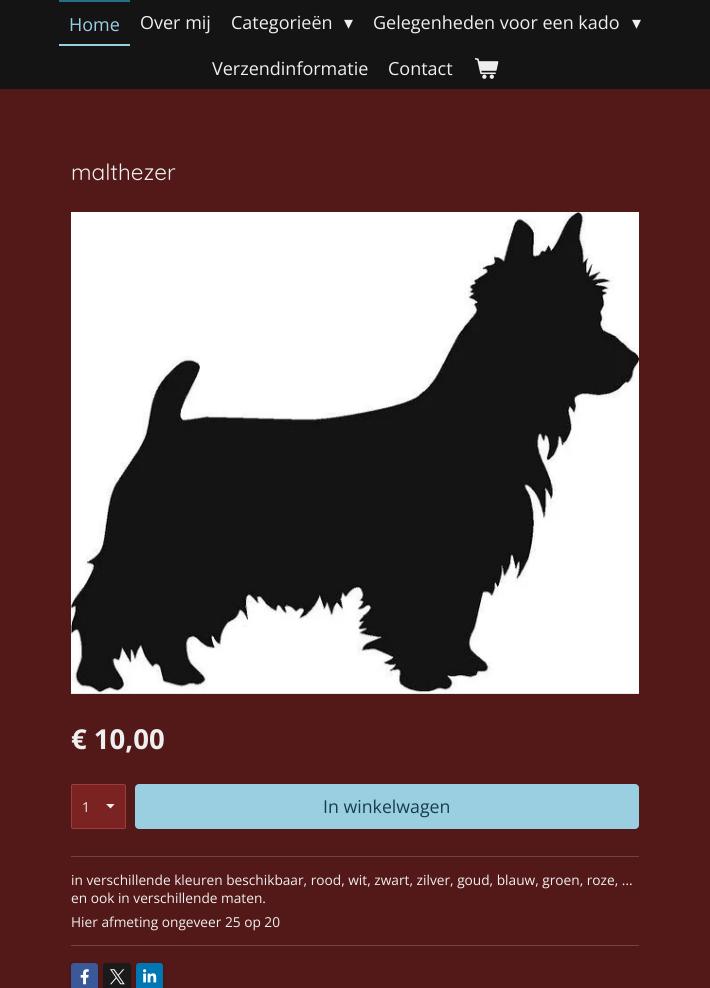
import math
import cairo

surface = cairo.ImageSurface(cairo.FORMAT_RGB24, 710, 988)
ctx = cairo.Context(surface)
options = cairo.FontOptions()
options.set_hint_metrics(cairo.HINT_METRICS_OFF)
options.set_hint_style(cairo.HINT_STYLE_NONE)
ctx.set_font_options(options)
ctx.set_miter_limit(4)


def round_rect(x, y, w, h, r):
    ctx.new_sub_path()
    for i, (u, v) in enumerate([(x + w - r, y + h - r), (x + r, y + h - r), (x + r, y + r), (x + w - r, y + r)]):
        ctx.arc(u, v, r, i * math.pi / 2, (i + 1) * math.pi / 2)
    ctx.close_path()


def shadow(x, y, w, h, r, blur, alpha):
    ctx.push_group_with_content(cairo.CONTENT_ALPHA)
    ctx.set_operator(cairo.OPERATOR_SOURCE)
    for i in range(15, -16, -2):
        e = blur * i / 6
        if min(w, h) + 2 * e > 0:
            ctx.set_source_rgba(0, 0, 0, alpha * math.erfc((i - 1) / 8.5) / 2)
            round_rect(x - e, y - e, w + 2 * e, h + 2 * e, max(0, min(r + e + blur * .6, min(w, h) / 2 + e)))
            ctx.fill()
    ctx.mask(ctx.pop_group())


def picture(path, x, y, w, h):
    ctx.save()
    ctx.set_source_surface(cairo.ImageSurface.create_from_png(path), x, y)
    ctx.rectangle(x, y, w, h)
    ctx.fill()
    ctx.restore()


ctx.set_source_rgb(0.082, 0.082, 0.082)
ctx.paint()
ctx.set_source_rgb(0.157, 0.435, 0.529)
ctx.rectangle(59, 0, 71, 2)
ctx.fill()
ctx.set_source_rgb(0.604, 0.812, 0.882)
ctx.rectangle(59, 44, 71, 2)
ctx.fill()
ctx.select_font_face("Open Sans")
ctx.set_font_size(18)
ctx.move_to(69, 31)
ctx.show_text("Home")
ctx.set_source_rgb(0.937, 0.937, 0.937)
ctx.move_to(140, 29)
ctx.show_text("Over mij")
ctx.move_to(231, 29)
ctx.show_text("Categorieën")
ctx.select_font_face("DejaVu Sans")
ctx.move_to(344, 29)
ctx.show_text("▾")
ctx.select_font_face("Open Sans")
ctx.move_to(373, 29)
ctx.show_text("Gelegenheden voor een kado")
ctx.select_font_face("DejaVu Sans")
ctx.move_to(632, 29)
ctx.show_text("▾")
ctx.select_font_face("Open Sans")
ctx.move_to(212, 75)
ctx.show_text("Verzendinformatie")
ctx.move_to(388, 75)
ctx.show_text("Contact")
picture("img1.png", 474, 58, 25, 21)
ctx.set_source_rgb(0.325, 0.094, 0.094)
ctx.rectangle(0, 89, 710, 899)
ctx.fill()
ctx.select_font_face("Quicksand")
ctx.set_font_size(22.5)
ctx.set_source_rgb(0.937, 0.937, 0.937)
ctx.move_to(71, 180)
ctx.show_text("malthezer")
picture("img2.png", 71, 212, 568, 482)
ctx.select_font_face("Open Sans", cairo.FONT_SLANT_NORMAL, cairo.FONT_WEIGHT_BOLD)
ctx.set_font_size(27.5)
ctx.move_to(71, 749)
ctx.show_text("€ 10,00")
ctx.set_source_rgb(0.482, 0.137, 0.137)
round_rect(71, 784, 55, 45, 2)
ctx.fill()
ctx.set_source_rgb(0.937, 0.937, 0.937)
ctx.new_path()
ctx.move_to(110.5, 808.5)
ctx.line_to(106, 804)
ctx.line_to(114.5, 804)
ctx.close_path()
ctx.fill()
round_rect(71.5, 784.5, 54, 44, 1.5)
ctx.set_source_rgba(0.804, 0.318, 0.318, 0.5)
ctx.set_line_width(1)
ctx.stroke()
ctx.select_font_face("Open Sans")
ctx.set_font_size(13.7)
ctx.set_source_rgb(0.937, 0.937, 0.937)
ctx.move_to(82, 812)
ctx.show_text("1")
ctx.set_source_rgb(0.604, 0.812, 0.882)
round_rect(135, 784, 504, 45, 4)
ctx.fill()
ctx.set_font_size(17.75)
ctx.set_source_rgb(0.09, 0.243, 0.298)
ctx.move_to(323, 813)
ctx.show_text("In winkelwagen")
ctx.set_source_rgb(0.447, 0.263, 0.263)
ctx.rectangle(71, 856, 568, 1)
ctx.fill()
ctx.set_font_size(13.7)
ctx.set_source_rgb(0.937, 0.937, 0.937)
ctx.move_to(71, 885)
ctx.show_text("in verschillende kleuren beschikbaar, rood, wit, zwart, zilver, goud, blauw, groen, roze, ...")
ctx.move_to(71, 903)
ctx.show_text("en ook in verschillende maten.")
ctx.move_to(71, 927)
ctx.show_text("Hier afmeting ongeveer 25 op 20")
ctx.set_source_rgb(0.447, 0.263, 0.263)
ctx.rectangle(71, 945, 568, 1)
ctx.fill()
ctx.set_source_rgb(0, 0, 0)
shadow(71, 964, 27, 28, 3, 1.5, 0.2)
ctx.set_source_rgb(0.231, 0.349, 0.596)
round_rect(71, 963, 27, 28, 3)
ctx.fill()
picture("img3.png", 80, 969, 9, 16)
ctx.set_source_rgb(0, 0, 0)
shadow(103, 964, 28, 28, 3, 1.5, 0.2)
ctx.set_source_rgb(0.102, 0.102, 0.102)
round_rect(103, 963, 28, 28, 3)
ctx.fill()
picture("img4.png", 110, 969, 15, 16)
ctx.set_source_rgb(0, 0, 0)
shadow(136, 964, 27, 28, 3, 1.5, 0.2)
ctx.set_source_rgb(0, 0.467, 0.71)
round_rect(136, 963, 27, 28, 3)
ctx.fill()
picture("img5.png", 143, 969, 14, 14)
surface.write_to_png("page.png")
